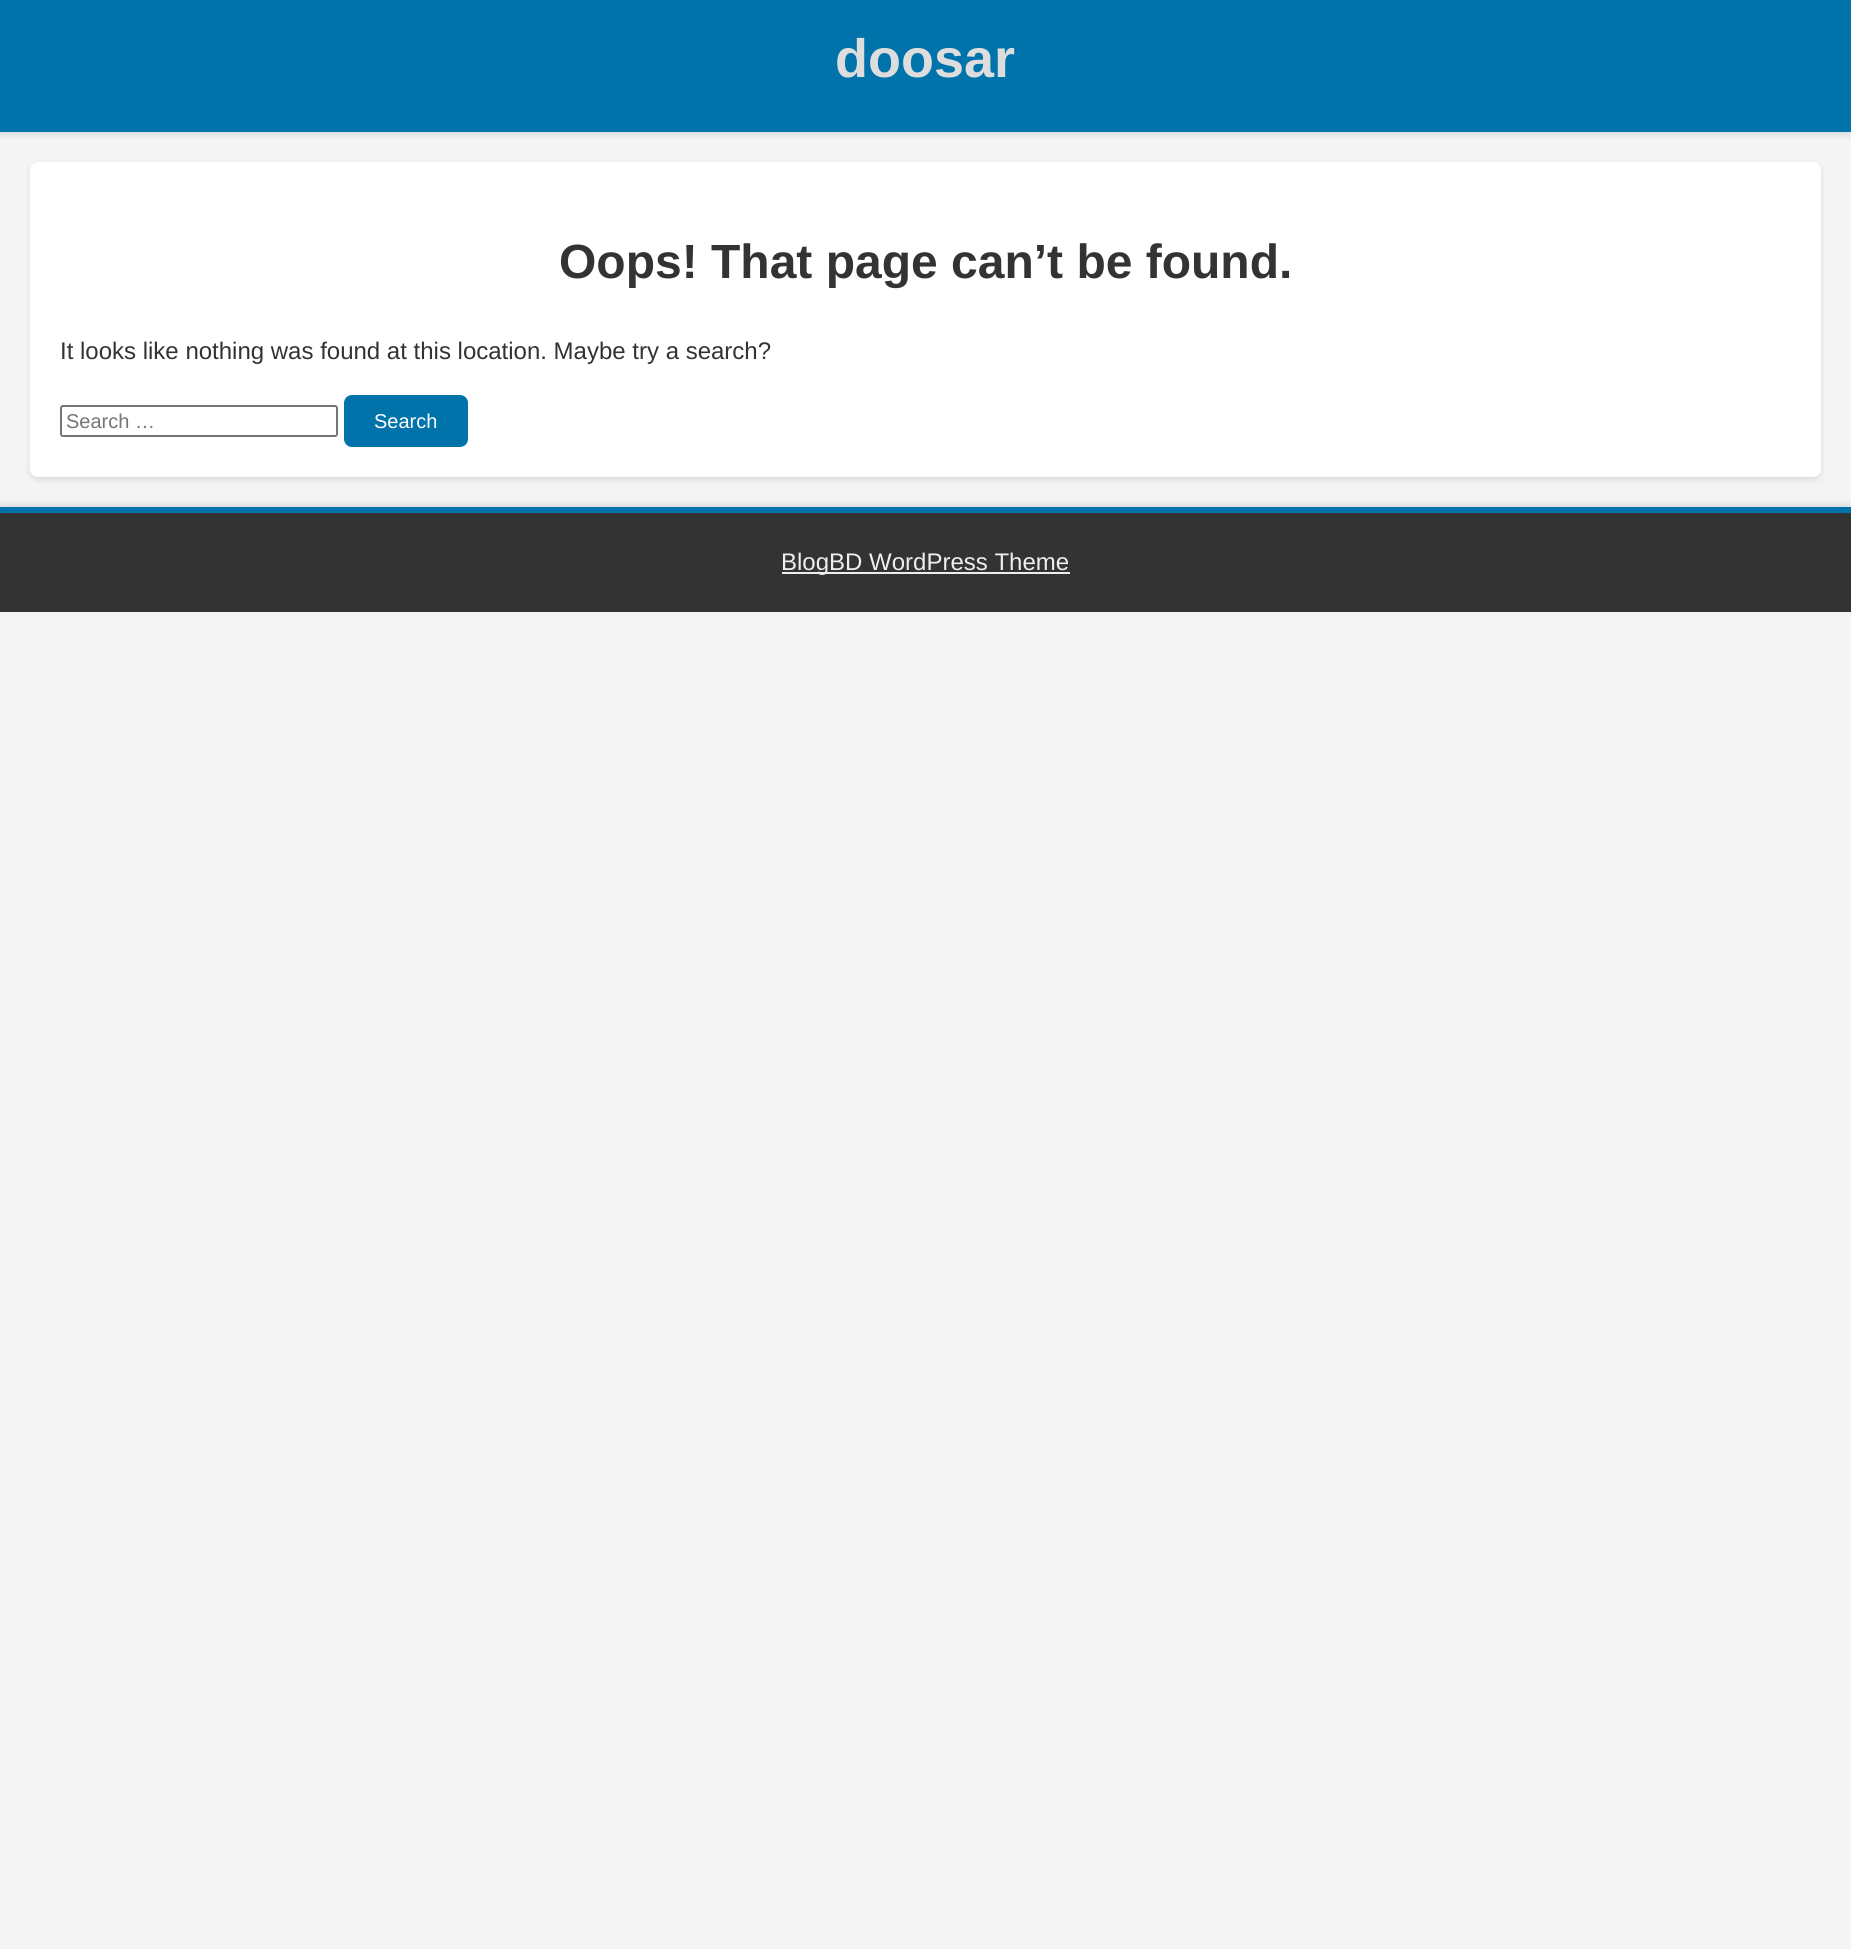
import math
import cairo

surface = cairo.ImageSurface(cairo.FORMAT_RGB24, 1851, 1949)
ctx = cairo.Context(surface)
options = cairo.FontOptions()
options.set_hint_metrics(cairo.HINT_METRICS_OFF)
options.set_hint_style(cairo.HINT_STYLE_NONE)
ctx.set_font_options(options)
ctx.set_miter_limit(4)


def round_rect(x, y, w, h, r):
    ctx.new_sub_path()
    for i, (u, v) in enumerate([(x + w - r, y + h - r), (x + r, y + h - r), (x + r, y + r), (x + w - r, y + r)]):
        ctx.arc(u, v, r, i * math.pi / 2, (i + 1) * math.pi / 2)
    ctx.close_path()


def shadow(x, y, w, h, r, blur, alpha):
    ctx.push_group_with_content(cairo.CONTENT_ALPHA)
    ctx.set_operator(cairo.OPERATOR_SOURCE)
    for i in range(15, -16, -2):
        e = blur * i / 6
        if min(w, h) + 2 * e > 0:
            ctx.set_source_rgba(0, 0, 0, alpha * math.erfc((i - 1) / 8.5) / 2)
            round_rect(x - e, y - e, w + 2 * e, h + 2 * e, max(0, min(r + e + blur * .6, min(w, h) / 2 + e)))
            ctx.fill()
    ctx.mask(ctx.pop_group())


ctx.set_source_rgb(0.957, 0.957, 0.957)
ctx.paint()
ctx.set_source_rgb(0, 0, 0)
shadow(0, 3, 1851, 132, 0, 3, 0.1)
ctx.set_source_rgb(0, 0.451, 0.667)
ctx.rectangle(0, 0, 1851, 132)
ctx.fill()
ctx.select_font_face("Liberation Sans", cairo.FONT_SLANT_NORMAL, cairo.FONT_WEIGHT_BOLD)
ctx.set_font_size(54)
ctx.set_source_rgb(0.867, 0.867, 0.867)
ctx.move_to(835, 77)
ctx.show_text("doosar")
ctx.set_source_rgb(0, 0, 0)
shadow(30, 165, 1791, 315, 8, 3, 0.1)
ctx.set_source_rgb(1, 1, 1)
round_rect(30, 162, 1791, 315, 8)
ctx.fill()
ctx.set_font_size(48)
ctx.set_source_rgb(0.2, 0.2, 0.2)
ctx.move_to(559, 278)
ctx.show_text("Oops! That page can’t be found.")
ctx.select_font_face("Liberation Sans")
ctx.set_font_size(24)
ctx.move_to(60, 359)
ctx.show_text("It looks like nothing was found at this location. Maybe try a search?")
round_rect(61, 406, 276, 30, 2)
ctx.set_source_rgb(0.463, 0.463, 0.463)
ctx.stroke()
ctx.set_font_size(20)
ctx.set_source_rgb(0.459, 0.459, 0.459)
ctx.move_to(66, 428)
ctx.show_text("Search …")
ctx.set_source_rgb(0, 0.451, 0.667)
round_rect(344, 395, 124, 52, 8)
ctx.fill()
ctx.set_source_rgb(1, 1, 1)
ctx.move_to(374, 428)
ctx.show_text("Search")
ctx.set_source_rgb(0, 0, 0)
shadow(0, 504, 1851, 105, 0, 3, 0.1)
ctx.set_source_rgb(0.2, 0.2, 0.2)
ctx.rectangle(0, 513, 1851, 99)
ctx.fill()
ctx.set_source_rgb(0, 0.451, 0.667)
ctx.rectangle(0, 507, 1851, 6)
ctx.fill()
ctx.set_source_rgb(0.933, 0.933, 0.933)
ctx.rectangle(782, 572, 288, 2)
ctx.fill()
ctx.set_font_size(24)
ctx.move_to(781, 570)
ctx.show_text("BlogBD WordPress Theme")
surface.write_to_png("page.png")
